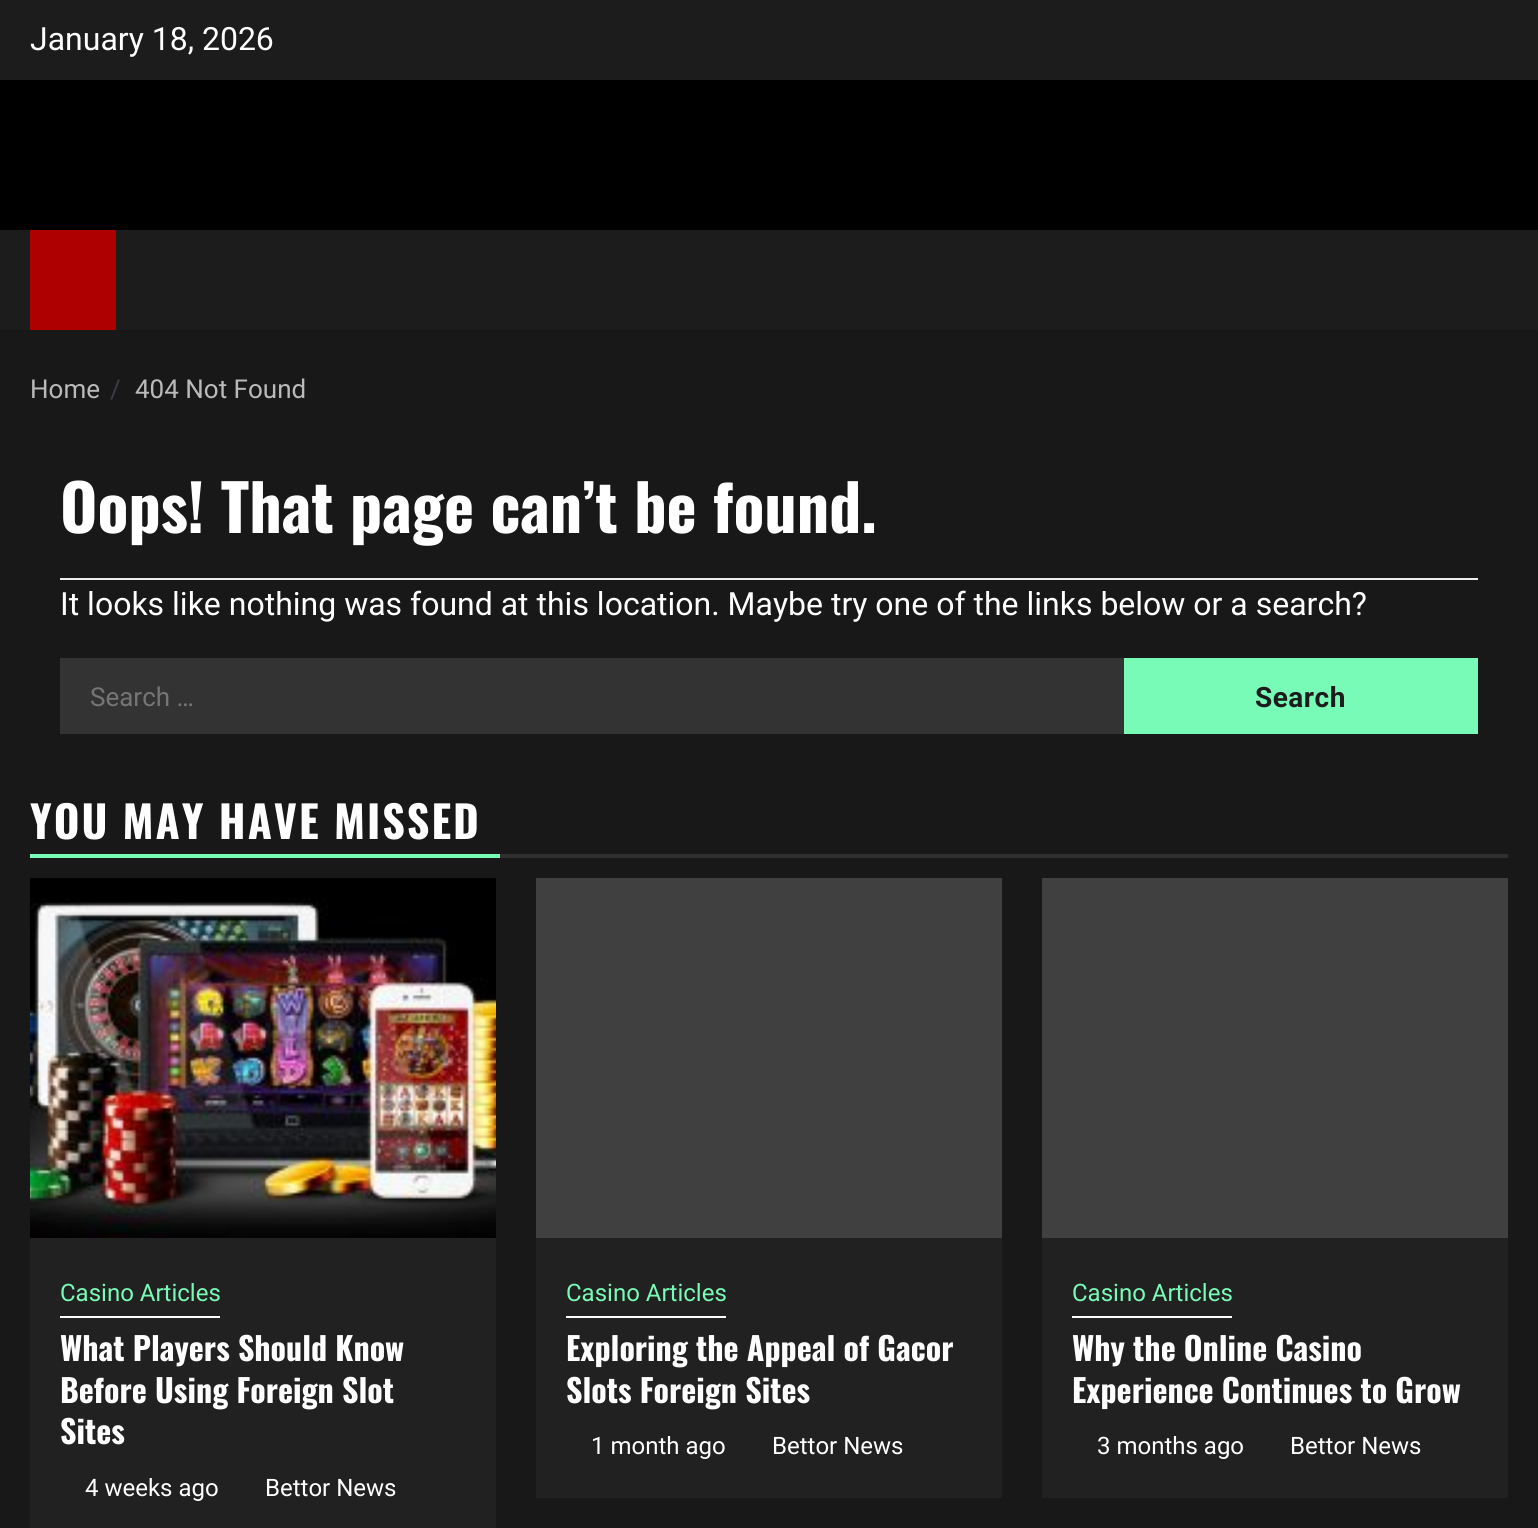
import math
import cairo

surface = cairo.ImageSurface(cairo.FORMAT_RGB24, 1538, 1528)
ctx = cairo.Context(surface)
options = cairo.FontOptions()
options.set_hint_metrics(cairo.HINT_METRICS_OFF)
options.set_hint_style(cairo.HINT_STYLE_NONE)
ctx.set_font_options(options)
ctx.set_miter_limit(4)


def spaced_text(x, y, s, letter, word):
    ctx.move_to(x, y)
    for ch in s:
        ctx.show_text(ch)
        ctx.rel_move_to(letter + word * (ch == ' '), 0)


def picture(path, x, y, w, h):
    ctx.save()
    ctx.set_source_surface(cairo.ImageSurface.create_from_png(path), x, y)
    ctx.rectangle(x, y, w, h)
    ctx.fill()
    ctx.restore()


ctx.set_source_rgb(0.094, 0.094, 0.094)
ctx.paint()
ctx.set_source_rgb(0, 0, 0)
ctx.rectangle(0, 80, 1538, 150)
ctx.fill()
ctx.set_source_rgb(0.11, 0.11, 0.11)
ctx.rectangle(0, 0, 1538, 80)
ctx.fill()
ctx.select_font_face("Roboto")
ctx.set_font_size(32)
ctx.set_source_rgb(1, 1, 1)
ctx.move_to(30, 50)
ctx.show_text("January 18, 2026")
ctx.set_source_rgb(0.11, 0.11, 0.11)
ctx.rectangle(0, 230, 1538, 100)
ctx.fill()
ctx.set_source_rgb(0.686, 0, 0)
ctx.rectangle(30, 230, 86, 100)
ctx.fill()
ctx.set_font_size(26)
ctx.set_source_rgb(0.729, 0.729, 0.729)
ctx.move_to(30, 398)
ctx.show_text("Home")
ctx.set_source_rgb(0.224, 0.243, 0.275)
ctx.move_to(110, 398)
ctx.show_text("/")
ctx.set_source_rgb(0.729, 0.729, 0.729)
ctx.move_to(135, 398)
ctx.show_text("404 Not Found")
ctx.set_source_rgb(0.933, 0.933, 0.933)
ctx.rectangle(60, 578, 1418, 2)
ctx.fill()
ctx.select_font_face("Oswald", cairo.FONT_SLANT_NORMAL, cairo.FONT_WEIGHT_BOLD)
ctx.set_font_size(64)
ctx.set_source_rgb(1, 1, 1)
ctx.move_to(60, 533)
ctx.show_text("Oops! That page can’t be found.")
ctx.select_font_face("Roboto")
ctx.set_font_size(32)
ctx.move_to(60, 615)
ctx.show_text("It looks like nothing was found at this location. Maybe try one of the links below or a search?")
ctx.set_source_rgb(0.2, 0.2, 0.2)
ctx.rectangle(60, 658, 1064, 76)
ctx.fill()
ctx.set_font_size(26)
ctx.set_source_rgb(0.459, 0.459, 0.459)
ctx.move_to(90, 706)
ctx.show_text("Search …")
ctx.set_source_rgb(0.471, 0.984, 0.718)
ctx.rectangle(1124, 658, 354, 76)
ctx.fill()
ctx.select_font_face("Roboto", cairo.FONT_SLANT_NORMAL, cairo.FONT_WEIGHT_BOLD)
ctx.set_font_size(28)
ctx.set_source_rgb(0.11, 0.11, 0.11)
spaced_text(1255, 707, "Search", 0.5, 0)
ctx.set_source_rgb(0.471, 0.984, 0.718)
ctx.rectangle(30, 854, 470, 4)
ctx.fill()
ctx.select_font_face("Oswald", cairo.FONT_SLANT_NORMAL, cairo.FONT_WEIGHT_BOLD)
ctx.set_font_size(44)
ctx.set_source_rgb(1, 1, 1)
spaced_text(30, 839, "YOU MAY HAVE MISSED", 2, 0)
ctx.set_source_rgb(0.184, 0.184, 0.184)
ctx.rectangle(500, 854, 1008, 4)
ctx.fill()
ctx.set_source_rgb(0.129, 0.129, 0.129)
ctx.rectangle(30, 1238, 466, 290)
ctx.fill()
picture("img1.png", 30, 878, 466, 360)
ctx.set_source_rgb(1, 1, 1)
ctx.rectangle(60, 1316, 160, 2)
ctx.fill()
ctx.select_font_face("Roboto")
ctx.set_font_size(24)
ctx.set_source_rgb(0.471, 0.984, 0.718)
ctx.move_to(60, 1301)
ctx.show_text("Casino Articles")
ctx.select_font_face("Oswald", cairo.FONT_SLANT_NORMAL, cairo.FONT_WEIGHT_BOLD)
ctx.set_font_size(32)
ctx.set_source_rgb(1, 1, 1)
ctx.move_to(60, 1361)
ctx.show_text("What Players Should Know")
ctx.move_to(60, 1403)
ctx.show_text("Before Using Foreign Slot")
ctx.move_to(60, 1444)
ctx.show_text("Sites")
ctx.select_font_face("Roboto")
ctx.set_font_size(24)
ctx.move_to(85, 1496)
ctx.show_text("4 weeks ago")
ctx.move_to(265, 1496)
ctx.show_text("Bettor News")
ctx.set_source_rgb(0.129, 0.129, 0.129)
ctx.rectangle(536, 1238, 466, 260)
ctx.fill()
ctx.set_source_rgb(0.251, 0.251, 0.251)
ctx.rectangle(536, 878, 466, 360)
ctx.fill()
ctx.set_source_rgb(1, 1, 1)
ctx.rectangle(566, 1316, 160, 2)
ctx.fill()
ctx.set_source_rgb(0.471, 0.984, 0.718)
ctx.move_to(566, 1301)
ctx.show_text("Casino Articles")
ctx.select_font_face("Oswald", cairo.FONT_SLANT_NORMAL, cairo.FONT_WEIGHT_BOLD)
ctx.set_font_size(32)
ctx.set_source_rgb(1, 1, 1)
ctx.move_to(566, 1361)
ctx.show_text("Exploring the Appeal of Gacor")
ctx.move_to(566, 1403)
ctx.show_text("Slots Foreign Sites")
ctx.select_font_face("Roboto")
ctx.set_font_size(24)
ctx.move_to(591, 1454)
ctx.show_text("1 month ago")
ctx.move_to(772, 1454)
ctx.show_text("Bettor News")
ctx.set_source_rgb(0.129, 0.129, 0.129)
ctx.rectangle(1042, 1238, 466, 260)
ctx.fill()
ctx.set_source_rgb(0.251, 0.251, 0.251)
ctx.rectangle(1042, 878, 466, 360)
ctx.fill()
ctx.set_source_rgb(1, 1, 1)
ctx.rectangle(1072, 1316, 160, 2)
ctx.fill()
ctx.set_source_rgb(0.471, 0.984, 0.718)
ctx.move_to(1072, 1301)
ctx.show_text("Casino Articles")
ctx.select_font_face("Oswald", cairo.FONT_SLANT_NORMAL, cairo.FONT_WEIGHT_BOLD)
ctx.set_font_size(32)
ctx.set_source_rgb(1, 1, 1)
ctx.move_to(1072, 1361)
ctx.show_text("Why the Online Casino")
ctx.move_to(1072, 1403)
ctx.show_text("Experience Continues to Grow")
ctx.select_font_face("Roboto")
ctx.set_font_size(24)
ctx.move_to(1097, 1454)
ctx.show_text("3 months ago")
ctx.move_to(1290, 1454)
ctx.show_text("Bettor News")
surface.write_to_png("page.png")
